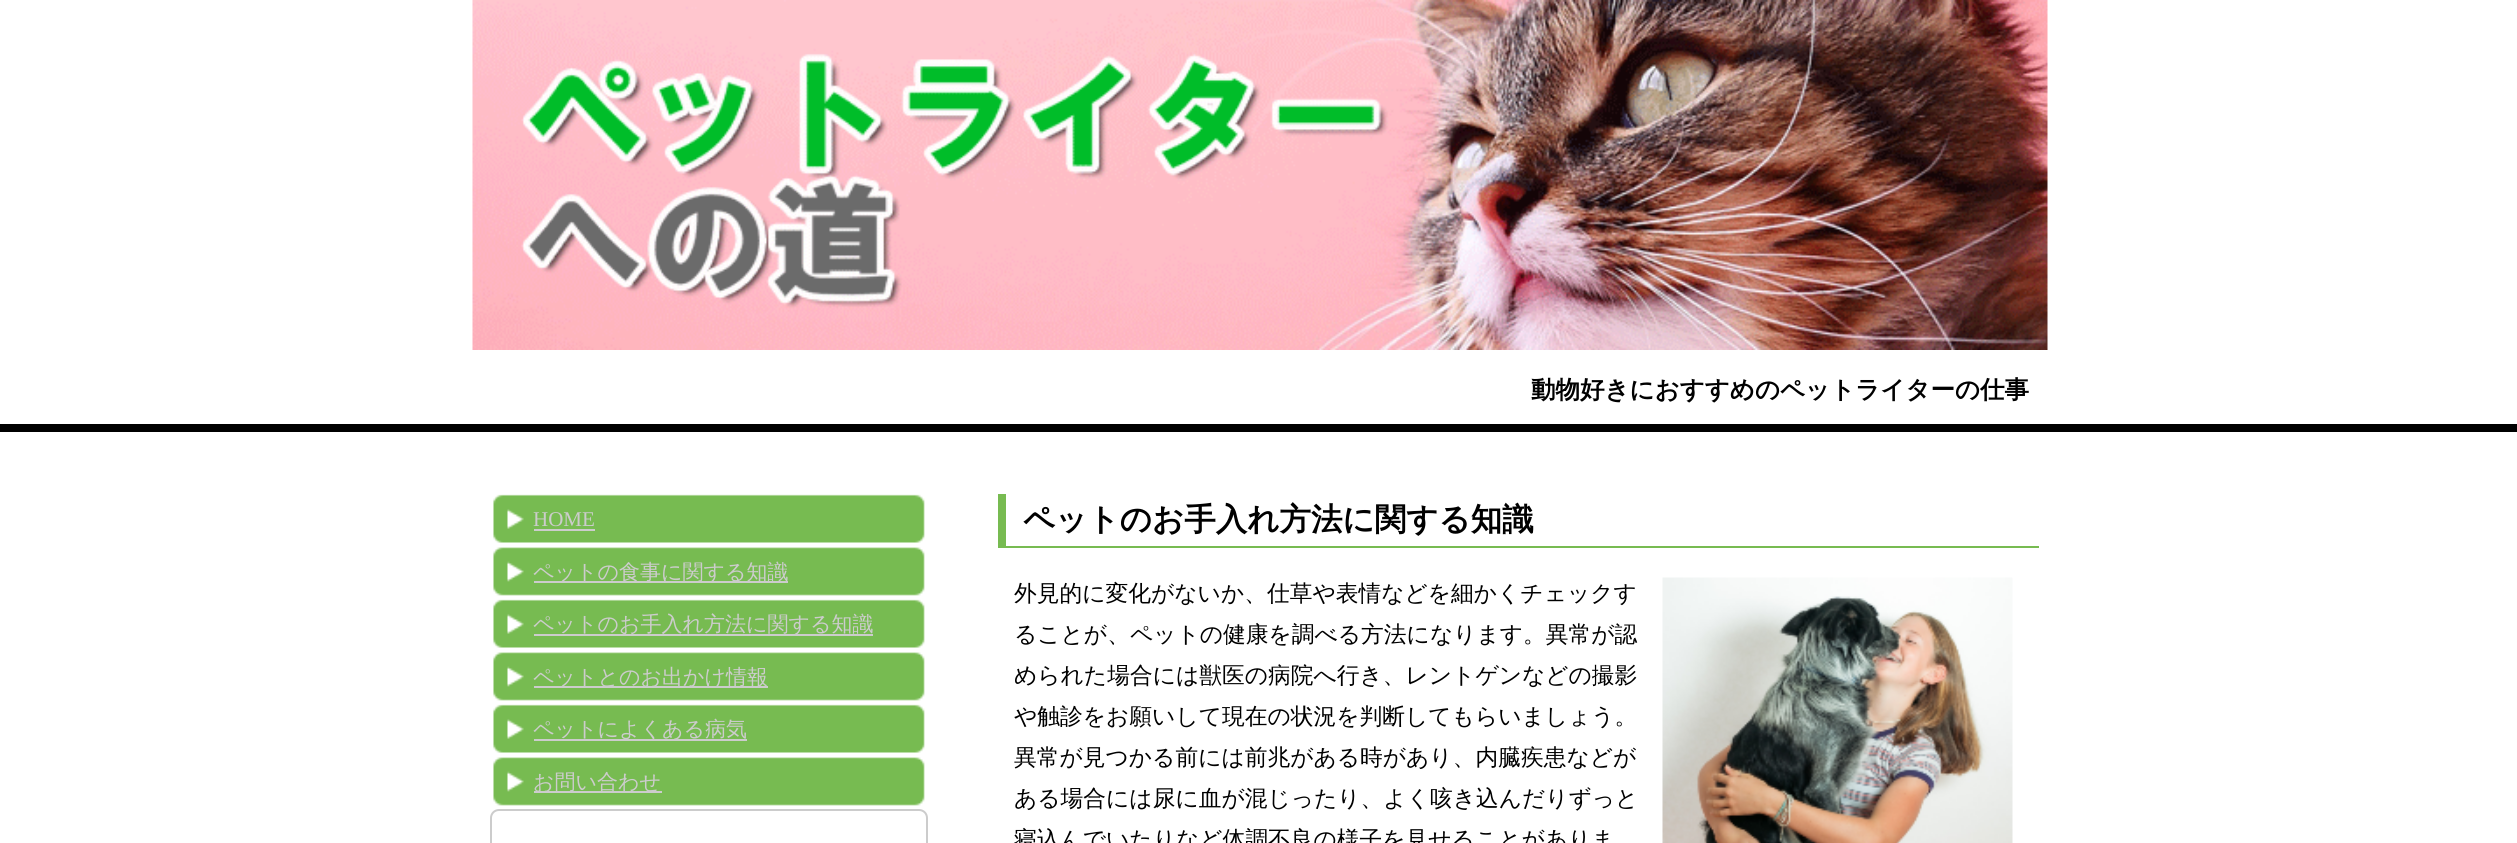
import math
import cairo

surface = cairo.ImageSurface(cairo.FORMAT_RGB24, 2517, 843)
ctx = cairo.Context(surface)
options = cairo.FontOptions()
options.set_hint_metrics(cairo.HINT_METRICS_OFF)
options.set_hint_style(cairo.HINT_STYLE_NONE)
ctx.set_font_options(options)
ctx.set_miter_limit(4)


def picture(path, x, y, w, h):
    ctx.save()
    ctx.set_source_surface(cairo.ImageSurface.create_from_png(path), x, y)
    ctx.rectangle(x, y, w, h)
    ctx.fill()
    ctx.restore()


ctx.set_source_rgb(1, 1, 1)
ctx.paint()
picture("img1.png", 472, 0, 1576, 350)
ctx.select_font_face("WenQuanYi Zen Hei", cairo.FONT_SLANT_NORMAL, cairo.FONT_WEIGHT_BOLD)
ctx.set_font_size(24.5)
ctx.set_source_rgb(0, 0, 0)
ctx.move_to(1531, 398)
ctx.show_text("動物好きにおすすめのペットライターの仕事")
ctx.rectangle(0, 424, 2517, 8)
ctx.fill()
picture("img2.png", 493, 494, 432, 49)
ctx.select_font_face("Liberation Serif")
ctx.set_font_size(21)
ctx.set_source_rgb(0.8, 0.8, 0.8)
ctx.move_to(533, 526)
ctx.show_text("HOME")
ctx.rectangle(534, 529, 61, 2)
ctx.fill()
picture("img3.png", 493, 547, 432, 49)
ctx.rectangle(534, 581, 254, 2)
ctx.fill()
ctx.select_font_face("WenQuanYi Zen Hei Medium")
ctx.move_to(533, 579)
ctx.show_text("ペットの食事に関する知識")
picture("img2.png", 493, 599, 432, 49)
ctx.rectangle(534, 634, 339, 2)
ctx.fill()
ctx.move_to(533, 631)
ctx.show_text("ペットのお手入れ方法に関する知識")
picture("img3.png", 493, 652, 432, 49)
ctx.rectangle(534, 686, 234, 2)
ctx.fill()
ctx.move_to(533, 684)
ctx.show_text("ペットとのお出かけ情報")
picture("img2.png", 493, 704, 432, 49)
ctx.rectangle(534, 739, 213, 2)
ctx.fill()
ctx.move_to(533, 736)
ctx.show_text("ペットによくある病気")
picture("img3.png", 493, 757, 432, 49)
ctx.rectangle(534, 791, 128, 2)
ctx.fill()
ctx.move_to(533, 789)
ctx.show_text("お問い合わせ")
ctx.new_path()
ctx.move_to(499, 810)
ctx.line_to(919, 810)
ctx.curve_to(923.5, 810, 927, 813.5, 927, 818)
ctx.line_to(927, 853)
ctx.line_to(491, 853)
ctx.line_to(491, 818)
ctx.curve_to(491, 813.5, 494.5, 810, 499, 810)
ctx.close_path()
ctx.stroke()
ctx.set_source_rgb(0.467, 0.733, 0.318)
ctx.rectangle(998, 546, 1041, 2)
ctx.fill()
ctx.rectangle(998, 494, 8, 54)
ctx.fill()
ctx.select_font_face("WenQuanYi Zen Hei", cairo.FONT_SLANT_NORMAL, cairo.FONT_WEIGHT_BOLD)
ctx.set_font_size(31.5)
ctx.set_source_rgb(0, 0, 0)
ctx.move_to(1023, 530)
ctx.show_text("ペットのお手入れ方法に関する知識")
ctx.select_font_face("WenQuanYi Zen Hei Medium")
ctx.set_font_size(22.75)
ctx.move_to(1014, 601)
ctx.show_text("外見的に変化がないか、仕草や表情などを細かくチェックす")
picture("img4.png", 1662, 577, 351, 266)
ctx.move_to(1014, 642)
ctx.show_text("ることが、ペットの健康を調べる方法になります。異常が認")
ctx.move_to(1014, 683)
ctx.show_text("められた場合には獣医の病院へ行き、レントゲンなどの撮影")
ctx.move_to(1014, 724)
ctx.show_text("や触診をお願いして現在の状況を判断してもらいましょう。")
ctx.move_to(1014, 765)
ctx.show_text("異常が見つかる前には前兆がある時があり、内臓疾患などが")
ctx.move_to(1014, 806)
ctx.show_text("ある場合には尿に血が混じったり、よく咳き込んだりずっと")
ctx.move_to(1014, 847)
ctx.show_text("寝込んでいたりなど体調不良の様子を見せることがありま")
surface.write_to_png("page.png")
